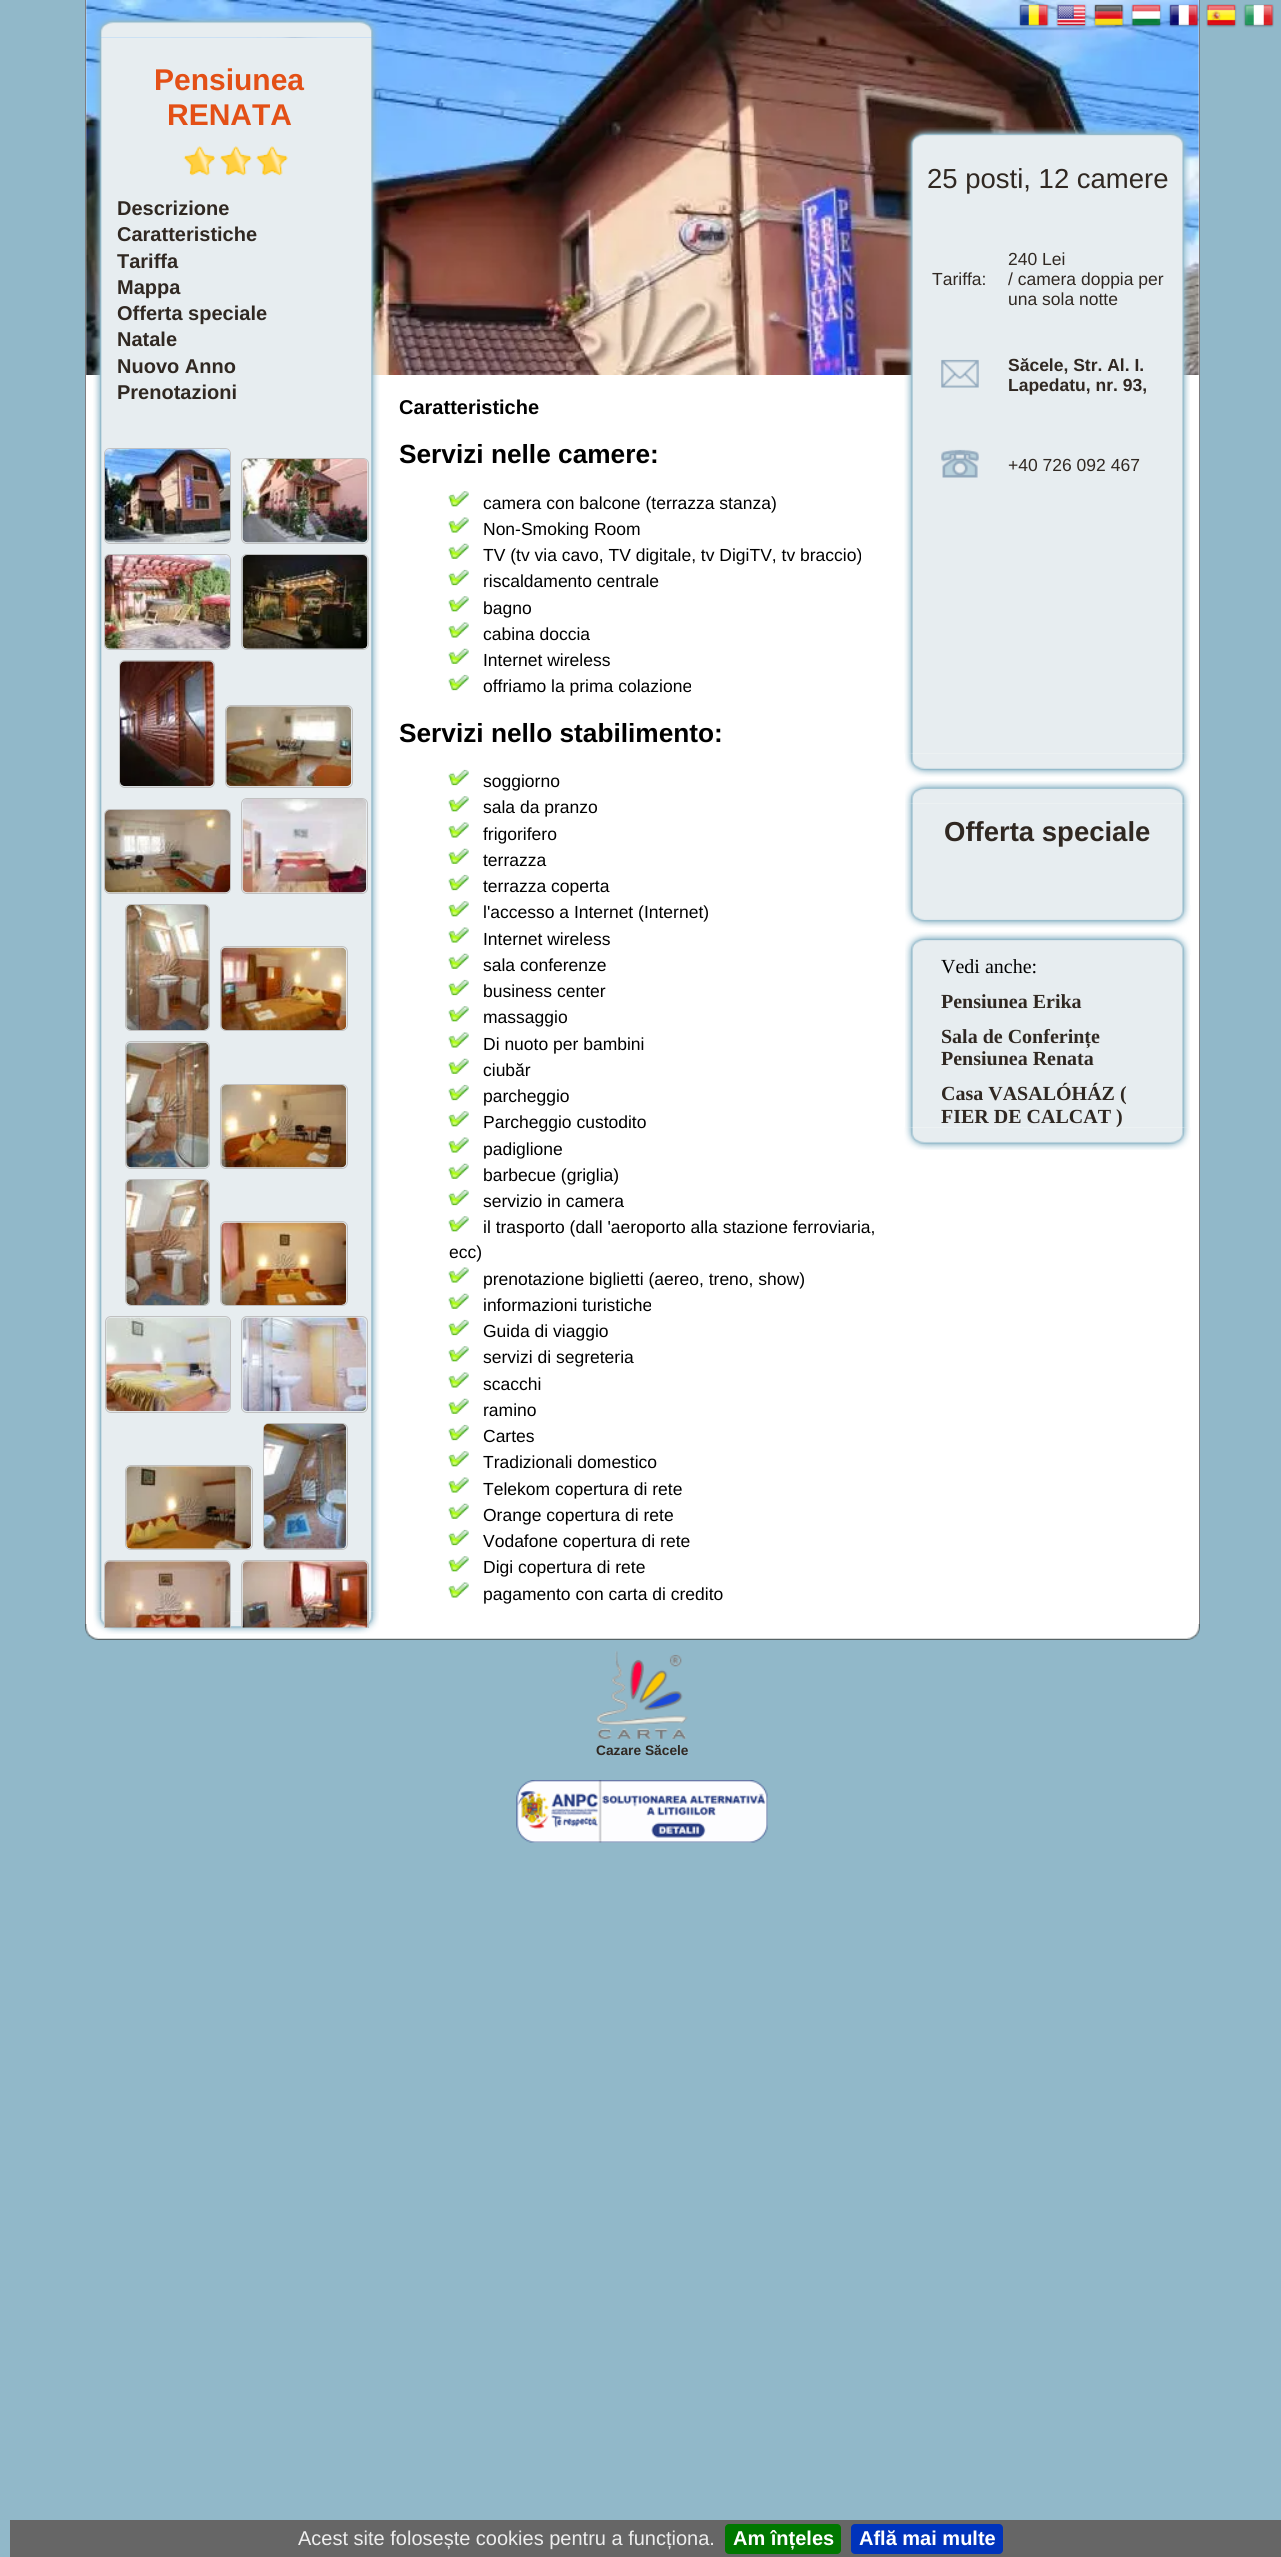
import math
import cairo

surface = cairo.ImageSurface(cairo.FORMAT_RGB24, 1281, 2557)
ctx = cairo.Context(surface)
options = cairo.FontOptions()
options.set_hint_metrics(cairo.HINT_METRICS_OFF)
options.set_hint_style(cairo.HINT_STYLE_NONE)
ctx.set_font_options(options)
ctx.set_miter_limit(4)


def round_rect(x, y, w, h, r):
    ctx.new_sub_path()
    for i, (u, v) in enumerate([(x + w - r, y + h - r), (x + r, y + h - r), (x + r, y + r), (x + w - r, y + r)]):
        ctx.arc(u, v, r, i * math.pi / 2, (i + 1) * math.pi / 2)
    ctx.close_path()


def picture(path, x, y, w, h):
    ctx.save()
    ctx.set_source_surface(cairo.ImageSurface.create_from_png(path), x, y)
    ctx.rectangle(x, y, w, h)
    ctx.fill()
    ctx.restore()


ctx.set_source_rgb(0.569, 0.722, 0.788)
ctx.paint()
ctx.set_source_rgb(1, 1, 1)
ctx.rectangle(86, 0, 1113, 1624)
ctx.fill()
picture("img2.png", 86, 0, 1113, 375)
ctx.set_source_rgb(0.498, 0.49, 0.502)
ctx.rectangle(1199, 0, 1, 1624)
ctx.fill()
picture("img1.png", 1018, 4, 256, 24)
ctx.rectangle(85, 0, 1, 1624)
ctx.fill()
picture("img3.png", 94, 14, 285, 24)
picture("img4.png", 93, 37, 287, 1575)
ctx.select_font_face("Liberation Sans", cairo.FONT_SLANT_NORMAL, cairo.FONT_WEIGHT_BOLD)
ctx.set_font_size(30)
ctx.set_source_rgb(0.89, 0.314, 0.086)
ctx.move_to(154, 90)
ctx.show_text("Pensiunea")
ctx.move_to(167, 125)
ctx.show_text("RENATA")
picture("img5.png", 183, 146, 32, 30)
picture("img6.png", 220, 146, 32, 30)
picture("img7.png", 256, 146, 32, 30)
ctx.set_font_size(20)
ctx.set_source_rgb(0.188, 0.157, 0.133)
ctx.move_to(117, 215)
ctx.show_text("Descrizione")
ctx.move_to(117, 241)
ctx.show_text("Caratteristiche")
ctx.move_to(117, 268)
ctx.show_text("Tariffa")
ctx.move_to(117, 294)
ctx.show_text("Mappa")
ctx.move_to(117, 320)
ctx.show_text("Offerta speciale")
ctx.move_to(117, 346)
ctx.show_text("Natale")
ctx.move_to(117, 373)
ctx.show_text("Nuovo Anno")
ctx.move_to(117, 399)
ctx.show_text("Prenotazioni")
round_rect(104.5, 448.5, 126, 95, 5.5)
ctx.set_source_rgb(0.753, 0.753, 0.753)
ctx.set_line_width(1)
ctx.stroke()
picture("img8.png", 105, 448, 125, 95)
round_rect(241.5, 458.5, 127, 85, 5.5)
ctx.stroke()
picture("img9.png", 242, 458, 126, 85)
round_rect(104.5, 554.5, 126, 95, 5.5)
ctx.stroke()
round_rect(241.5, 554.5, 127, 95, 5.5)
ctx.stroke()
picture("img10.png", 105, 555, 125, 94)
picture("img11.png", 242, 555, 126, 94)
round_rect(119.5, 660.5, 95, 127, 5.5)
ctx.stroke()
picture("img12.png", 120, 661, 94, 126)
round_rect(225.5, 705.5, 127, 82, 5.5)
ctx.stroke()
picture("img13.png", 226, 706, 126, 81)
round_rect(241.5, 798.5, 126, 95, 5.5)
ctx.stroke()
round_rect(104.5, 809.5, 126, 84, 5.5)
ctx.stroke()
picture("img14.png", 242, 799, 125, 94)
picture("img15.png", 105, 810, 125, 83)
round_rect(125.5, 904.5, 84, 126, 5.5)
ctx.stroke()
picture("img16.png", 126, 905, 83, 125)
round_rect(220.5, 946.5, 127, 84, 5.5)
ctx.stroke()
picture("img17.png", 221, 947, 126, 83)
round_rect(125.5, 1041.5, 84, 127, 5.5)
ctx.stroke()
picture("img18.png", 126, 1042, 83, 126)
round_rect(220.5, 1084.5, 127, 84, 5.5)
ctx.stroke()
picture("img19.png", 221, 1085, 126, 83)
round_rect(125.5, 1179.5, 84, 126, 5.5)
ctx.stroke()
picture("img20.png", 126, 1180, 83, 125)
round_rect(220.5, 1221.5, 127, 84, 5.5)
ctx.stroke()
picture("img21.png", 221, 1222, 126, 83)
round_rect(105.5, 1316.5, 125, 96, 5.5)
ctx.stroke()
round_rect(241.5, 1316.5, 126, 96, 5.5)
ctx.stroke()
picture("img22.png", 106, 1317, 124, 95)
picture("img23.png", 242, 1317, 125, 95)
round_rect(263.5, 1423.5, 84, 126, 5.5)
ctx.stroke()
round_rect(125.5, 1465.5, 127, 84, 5.5)
ctx.stroke()
picture("img24.png", 263, 1423, 84, 126)
picture("img25.png", 126, 1466, 126, 83)
picture("img46.png", 85, 1624, 1115, 16)
picture("img28.png", 93, 1611, 286, 23)
ctx.save()
ctx.rectangle(101, 408, 270, 1220)
ctx.clip()
round_rect(104.5, 1560.5, 126, 84, 5.5)
ctx.stroke()
round_rect(241.5, 1560.5, 127, 84, 5.5)
ctx.stroke()
ctx.restore()
picture("img26.png", 105, 1561, 125, 67)
picture("img27.png", 242, 1561, 126, 67)
ctx.set_source_rgb(0, 0, 0)
ctx.move_to(399, 414)
ctx.show_text("Caratteristiche")
ctx.set_font_size(26.25)
ctx.move_to(399, 463)
ctx.show_text("Servizi nelle camere:")
picture("img29.png", 448, 491, 21, 16)
ctx.select_font_face("Liberation Sans")
ctx.set_font_size(17.5)
ctx.move_to(483, 509)
ctx.show_text("camera con balcone (terrazza stanza)")
picture("img30.png", 448, 517, 21, 16)
ctx.move_to(483, 535)
ctx.show_text("Non-Smoking Room")
picture("img31.png", 448, 543, 21, 16)
ctx.move_to(483, 561)
ctx.show_text("TV (tv via cavo, TV digitale, tv DigiTV, tv braccio)")
picture("img32.png", 448, 569, 21, 17)
ctx.move_to(483, 587)
ctx.show_text("riscaldamento centrale")
picture("img29.png", 448, 596, 21, 16)
ctx.move_to(483, 614)
ctx.show_text("bagno")
picture("img30.png", 448, 622, 21, 16)
ctx.move_to(483, 640)
ctx.show_text("cabina doccia")
picture("img31.png", 448, 648, 21, 16)
ctx.move_to(483, 666)
ctx.show_text("Internet wireless")
picture("img32.png", 448, 674, 21, 17)
ctx.move_to(483, 692)
ctx.show_text("offriamo la prima colazione")
ctx.select_font_face("Liberation Sans", cairo.FONT_SLANT_NORMAL, cairo.FONT_WEIGHT_BOLD)
ctx.set_font_size(26.25)
ctx.move_to(399, 742)
ctx.show_text("Servizi nello stabilimento:")
picture("img32.png", 448, 769, 21, 17)
ctx.select_font_face("Liberation Sans")
ctx.set_font_size(17.5)
ctx.move_to(483, 787)
ctx.show_text("soggiorno")
picture("img29.png", 448, 796, 21, 16)
ctx.move_to(483, 813)
ctx.show_text("sala da pranzo")
picture("img30.png", 448, 822, 21, 16)
ctx.move_to(483, 840)
ctx.show_text("frigorifero")
picture("img31.png", 448, 848, 21, 16)
ctx.move_to(483, 866)
ctx.show_text("terrazza")
picture("img32.png", 448, 874, 21, 17)
ctx.move_to(483, 892)
ctx.show_text("terrazza coperta")
picture("img29.png", 448, 901, 21, 16)
ctx.move_to(483, 918)
ctx.show_text("l'accesso a Internet (Internet)")
picture("img30.png", 448, 927, 21, 16)
ctx.move_to(483, 945)
ctx.show_text("Internet wireless")
picture("img31.png", 448, 953, 21, 16)
ctx.move_to(483, 971)
ctx.show_text("sala conferenze")
picture("img32.png", 448, 979, 21, 17)
ctx.move_to(483, 997)
ctx.show_text("business center")
picture("img29.png", 448, 1006, 21, 16)
ctx.move_to(483, 1023)
ctx.show_text("massaggio")
picture("img30.png", 448, 1032, 21, 16)
ctx.move_to(483, 1050)
ctx.show_text("Di nuoto per bambini")
picture("img31.png", 448, 1058, 21, 16)
ctx.move_to(483, 1076)
ctx.show_text("ciubăr")
picture("img32.png", 448, 1084, 21, 17)
ctx.move_to(483, 1102)
ctx.show_text("parcheggio")
picture("img29.png", 448, 1111, 21, 16)
ctx.move_to(483, 1128)
ctx.show_text("Parcheggio custodito")
picture("img30.png", 448, 1137, 21, 16)
ctx.move_to(483, 1155)
ctx.show_text("padiglione")
picture("img33.png", 448, 1163, 21, 16)
ctx.move_to(483, 1181)
ctx.show_text("barbecue (griglia)")
picture("img32.png", 448, 1189, 21, 17)
ctx.move_to(483, 1207)
ctx.show_text("servizio in camera")
picture("img29.png", 448, 1216, 21, 16)
ctx.move_to(483, 1233)
ctx.show_text("il trasporto (dall 'aeroporto alla stazione ferroviaria,")
ctx.move_to(449, 1258)
ctx.show_text("ecc)")
picture("img30.png", 448, 1267, 21, 16)
ctx.move_to(483, 1285)
ctx.show_text("prenotazione biglietti (aereo, treno, show)")
picture("img31.png", 448, 1293, 21, 16)
ctx.move_to(483, 1311)
ctx.show_text("informazioni turistiche")
picture("img32.png", 448, 1319, 21, 17)
ctx.move_to(483, 1337)
ctx.show_text("Guida di viaggio")
picture("img29.png", 448, 1346, 21, 16)
ctx.move_to(483, 1363)
ctx.show_text("servizi di segreteria")
picture("img30.png", 448, 1372, 21, 16)
ctx.move_to(483, 1390)
ctx.show_text("scacchi")
picture("img31.png", 448, 1398, 21, 16)
ctx.move_to(483, 1416)
ctx.show_text("ramino")
picture("img32.png", 448, 1424, 21, 17)
ctx.move_to(483, 1442)
ctx.show_text("Cartes")
picture("img29.png", 448, 1451, 21, 16)
ctx.move_to(483, 1468)
ctx.show_text("Tradizionali domestico")
picture("img30.png", 448, 1477, 21, 16)
ctx.move_to(483, 1495)
ctx.show_text("Telekom copertura di rete")
picture("img31.png", 448, 1503, 21, 16)
ctx.move_to(483, 1521)
ctx.show_text("Orange copertura di rete")
picture("img32.png", 448, 1529, 21, 17)
ctx.move_to(483, 1547)
ctx.show_text("Vodafone copertura di rete")
picture("img34.png", 448, 1556, 21, 16)
ctx.move_to(483, 1573)
ctx.show_text("Digi copertura di rete")
picture("img30.png", 448, 1582, 21, 16)
ctx.move_to(483, 1600)
ctx.show_text("pagamento con carta di credito")
picture("img35.png", 904, 127, 286, 23)
picture("img36.png", 904, 150, 286, 604)
ctx.set_font_size(27.5)
ctx.set_source_rgb(0.188, 0.157, 0.133)
ctx.move_to(927, 188)
ctx.show_text("25 posti, 12 camere")
ctx.set_font_size(17.5)
ctx.move_to(932, 285)
ctx.show_text("Tariffa:")
ctx.move_to(1008, 265)
ctx.show_text("240 Lei")
ctx.move_to(1008, 285)
ctx.show_text("/ camera doppia per")
ctx.move_to(1008, 305)
ctx.show_text("una sola notte")
picture("img37.png", 941, 359, 38, 29)
ctx.select_font_face("Liberation Sans", cairo.FONT_SLANT_NORMAL, cairo.FONT_WEIGHT_BOLD)
ctx.move_to(1008, 371)
ctx.show_text("Săcele, Str. Al. I.")
ctx.move_to(1008, 391)
ctx.show_text("Lapedatu, nr. 93,")
picture("img38.png", 941, 449, 38, 29)
ctx.select_font_face("Liberation Sans")
ctx.move_to(1008, 471)
ctx.show_text("+40 726 092 467")
picture("img39.png", 905, 753, 286, 24)
picture("img40.png", 905, 781, 286, 23)
picture("img41.png", 905, 803, 285, 102)
ctx.select_font_face("Liberation Sans", cairo.FONT_SLANT_NORMAL, cairo.FONT_WEIGHT_BOLD)
ctx.set_font_size(27.5)
ctx.move_to(944, 841)
ctx.show_text("Offerta speciale")
picture("img42.png", 905, 905, 286, 23)
picture("img43.png", 905, 932, 286, 23)
picture("img44.png", 905, 955, 285, 173)
ctx.select_font_face("Liberation Serif")
ctx.set_font_size(20)
ctx.set_source_rgb(0, 0, 0)
ctx.move_to(941, 973)
ctx.show_text("Vedi anche:")
ctx.select_font_face("Liberation Serif", cairo.FONT_SLANT_NORMAL, cairo.FONT_WEIGHT_BOLD)
ctx.set_source_rgb(0.188, 0.157, 0.133)
ctx.move_to(941, 1008)
ctx.show_text("Pensiunea Erika")
ctx.move_to(941, 1043)
ctx.show_text("Sala de Conferințe")
ctx.move_to(941, 1065)
ctx.show_text("Pensiunea Renata")
ctx.move_to(941, 1100)
ctx.show_text("Casa VASALÓHÁZ (")
picture("img45.png", 904, 1127, 287, 23)
ctx.move_to(941, 1123)
ctx.show_text("FIER DE CALCAT )")
picture("img47.png", 596, 1651, 92, 88)
ctx.select_font_face("Liberation Sans", cairo.FONT_SLANT_NORMAL, cairo.FONT_WEIGHT_BOLD)
ctx.set_font_size(13.75)
ctx.move_to(596, 1755)
ctx.show_text("Cazare Săcele")
picture("img48.png", 516, 1780, 252, 63)
ctx.set_source_rgb(0.4, 0.4, 0.4)
ctx.rectangle(10, 2520, 1271, 37)
ctx.fill()
ctx.select_font_face("Liberation Sans")
ctx.set_font_size(20)
ctx.set_source_rgb(0.933, 0.933, 0.933)
ctx.move_to(298, 2545)
ctx.show_text("Acest site folosește cookies pentru a funcționa.")
ctx.set_source_rgb(0, 0.467, 0)
round_rect(725, 2524, 116, 30, 4)
ctx.fill()
ctx.select_font_face("Liberation Sans", cairo.FONT_SLANT_NORMAL, cairo.FONT_WEIGHT_BOLD)
ctx.set_source_rgb(1, 1, 1)
ctx.move_to(733, 2545)
ctx.show_text("Am înțeles")
ctx.set_source_rgb(0, 0.2, 0.733)
round_rect(851, 2524, 152, 30, 4)
ctx.fill()
ctx.set_source_rgb(1, 1, 1)
ctx.move_to(859, 2545)
ctx.show_text("Află mai multe")
surface.write_to_png("page.png")
